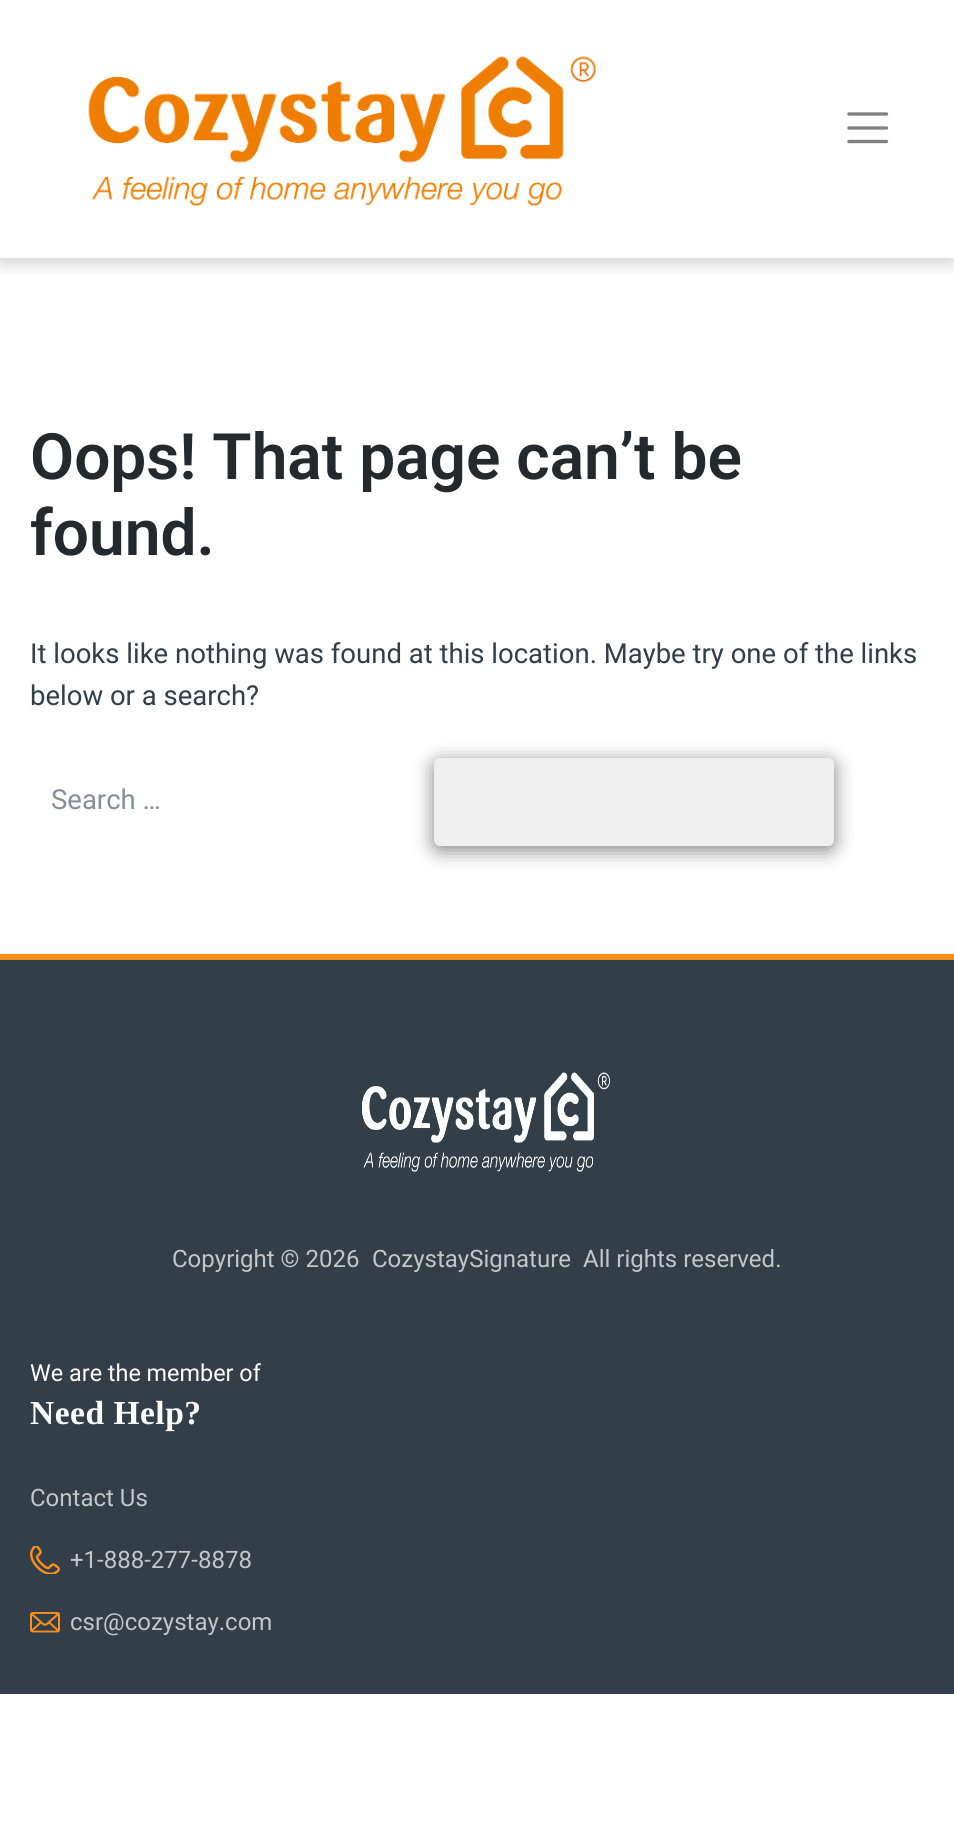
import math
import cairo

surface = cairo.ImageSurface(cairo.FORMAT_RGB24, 954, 1846)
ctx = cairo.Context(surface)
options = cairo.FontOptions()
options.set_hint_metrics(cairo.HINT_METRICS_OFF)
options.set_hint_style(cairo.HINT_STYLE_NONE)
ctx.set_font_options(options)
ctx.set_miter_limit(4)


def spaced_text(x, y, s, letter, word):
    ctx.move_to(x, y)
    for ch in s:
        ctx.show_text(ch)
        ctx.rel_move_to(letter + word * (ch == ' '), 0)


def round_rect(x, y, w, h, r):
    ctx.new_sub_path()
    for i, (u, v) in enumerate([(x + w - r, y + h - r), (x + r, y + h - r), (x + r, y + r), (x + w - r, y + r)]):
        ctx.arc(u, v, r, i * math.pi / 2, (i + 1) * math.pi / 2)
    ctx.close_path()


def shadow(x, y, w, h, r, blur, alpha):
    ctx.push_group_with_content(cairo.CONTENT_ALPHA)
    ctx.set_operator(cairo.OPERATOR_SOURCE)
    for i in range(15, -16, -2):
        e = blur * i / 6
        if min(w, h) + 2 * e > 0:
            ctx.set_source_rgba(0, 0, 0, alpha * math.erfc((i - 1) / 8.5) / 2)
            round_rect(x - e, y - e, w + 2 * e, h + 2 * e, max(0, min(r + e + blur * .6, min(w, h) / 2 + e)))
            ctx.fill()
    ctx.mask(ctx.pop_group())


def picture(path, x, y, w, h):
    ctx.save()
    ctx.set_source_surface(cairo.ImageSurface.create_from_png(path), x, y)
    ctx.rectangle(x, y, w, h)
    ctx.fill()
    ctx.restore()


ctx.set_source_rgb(1, 1, 1)
ctx.paint()
ctx.save()
ctx.rectangle(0, 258, 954, 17)
ctx.clip()
ctx.set_source_rgb(0, 0, 0)
shadow(0, 4, 954, 258, 0, 10, 0.2)
ctx.restore()
picture("img1.png", 88, 56, 509, 151)
ctx.new_path()
ctx.move_to(849, 114)
ctx.line_to(886.5, 114)
ctx.move_to(849, 128)
ctx.line_to(886.5, 128)
ctx.move_to(849, 141.5)
ctx.line_to(886.5, 141.5)
ctx.set_source_rgb(0.502, 0.502, 0.502)
ctx.set_line_width(3.4)
ctx.set_line_cap(cairo.LINE_CAP_ROUND)
ctx.stroke()
ctx.select_font_face("Roboto SemiBold")
ctx.set_font_size(64)
ctx.set_source_rgb(0.141, 0.161, 0.18)
ctx.move_to(30, 479)
ctx.show_text("Oops! That page can’t be")
ctx.move_to(30, 555)
ctx.show_text("found.")
ctx.select_font_face("Roboto")
ctx.set_font_size(27.5)
ctx.set_source_rgb(0.2, 0.247, 0.282)
ctx.move_to(30, 663)
ctx.show_text("It looks like nothing was found at this location. Maybe try one of the links")
ctx.move_to(30, 705)
ctx.show_text("below or a search?")
ctx.set_source_rgb(0.525, 0.557, 0.588)
ctx.move_to(51, 809)
ctx.show_text("Search …")
ctx.set_source_rgb(0, 0, 0)
shadow(434, 762, 400, 88, 6, 10, 0.5)
ctx.set_source_rgb(0.937, 0.937, 0.937)
round_rect(434, 758, 400, 88, 6)
ctx.fill()
ctx.set_source_rgb(0.2, 0.247, 0.282)
ctx.rectangle(0, 960, 954, 734)
ctx.fill()
ctx.set_source_rgb(1, 0.561, 0.11)
ctx.rectangle(0, 954, 954, 6)
ctx.fill()
picture("img2.png", 362, 1072, 249, 100)
ctx.set_font_size(24)
ctx.set_source_rgb(0.757, 0.776, 0.784)
ctx.move_to(172, 1267)
ctx.show_text("Copyright © 2026")
ctx.move_to(372, 1267)
ctx.show_text("CozystaySignature")
ctx.move_to(583, 1267)
ctx.show_text("All rights reserved.")
ctx.set_font_size(23.4)
ctx.set_source_rgb(1, 1, 1)
ctx.move_to(30, 1381)
ctx.show_text("We are the member of")
ctx.select_font_face("Liberation Serif", cairo.FONT_SLANT_NORMAL, cairo.FONT_WEIGHT_BOLD)
ctx.set_font_size(33.5)
spaced_text(30, 1424, "Need Help?", 0.5, 0)
ctx.select_font_face("Roboto")
ctx.set_font_size(24)
ctx.set_source_rgb(0.757, 0.776, 0.784)
ctx.move_to(30, 1506)
ctx.show_text("Contact Us")
picture("img3.png", 30, 1546, 30, 28)
ctx.move_to(70, 1568)
ctx.show_text("+1-888-277-8878")
picture("img4.png", 30, 1612, 30, 21)
ctx.move_to(70, 1630)
ctx.show_text("csr@cozystay.com")
surface.write_to_png("page.png")
